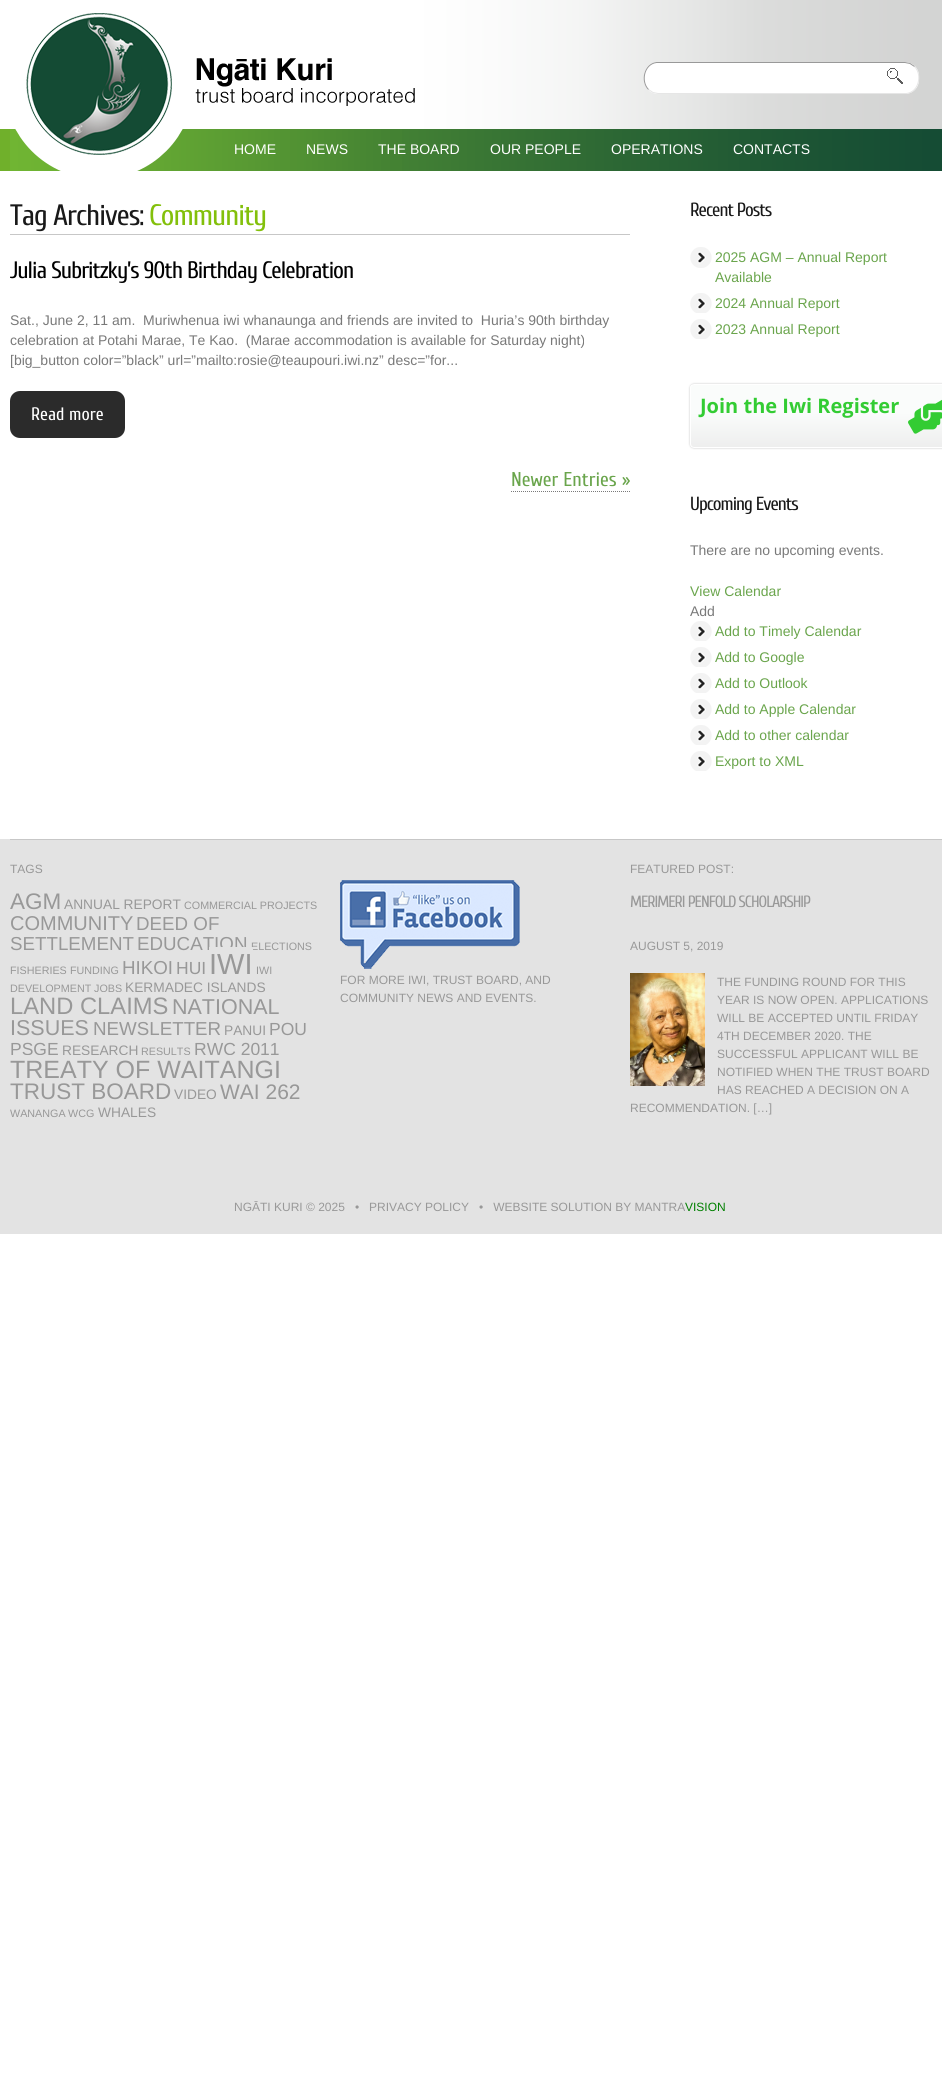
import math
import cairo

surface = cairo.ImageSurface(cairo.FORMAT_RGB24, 942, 2094)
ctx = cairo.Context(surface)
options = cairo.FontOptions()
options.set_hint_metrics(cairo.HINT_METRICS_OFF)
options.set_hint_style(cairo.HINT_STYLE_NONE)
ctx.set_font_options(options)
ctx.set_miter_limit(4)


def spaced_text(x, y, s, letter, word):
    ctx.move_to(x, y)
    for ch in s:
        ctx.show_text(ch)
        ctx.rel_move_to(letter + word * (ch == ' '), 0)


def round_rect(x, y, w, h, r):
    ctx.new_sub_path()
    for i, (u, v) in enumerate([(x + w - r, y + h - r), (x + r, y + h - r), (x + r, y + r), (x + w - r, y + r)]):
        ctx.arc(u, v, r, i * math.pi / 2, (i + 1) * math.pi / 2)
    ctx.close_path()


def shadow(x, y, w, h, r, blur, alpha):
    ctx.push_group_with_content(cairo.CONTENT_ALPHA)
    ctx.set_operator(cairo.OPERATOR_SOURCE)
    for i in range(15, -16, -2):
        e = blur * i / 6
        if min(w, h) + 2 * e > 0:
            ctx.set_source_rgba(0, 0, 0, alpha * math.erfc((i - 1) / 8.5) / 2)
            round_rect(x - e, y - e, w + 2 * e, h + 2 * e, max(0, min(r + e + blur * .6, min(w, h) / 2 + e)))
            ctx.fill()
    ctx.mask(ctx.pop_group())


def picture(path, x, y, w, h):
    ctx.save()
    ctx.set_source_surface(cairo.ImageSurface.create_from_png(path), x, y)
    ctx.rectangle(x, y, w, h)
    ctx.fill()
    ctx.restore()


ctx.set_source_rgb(1, 1, 1)
ctx.paint()
picture("img1.png", 0, 0, 10, 171)
picture("img2.png", 10, 0, 932, 171)
picture("img3.png", 15, 13, 168, 158)
picture("img4.png", 195, 58, 220, 48)
ctx.set_source_rgb(1, 1, 1)
round_rect(644, 62, 275, 32, 14)
ctx.fill()
ctx.new_path()
ctx.move_to(914.5, 66.5)
ctx.curve_to(922.5, 74.5, 919, 92, 906.5, 93.5)
ctx.line_to(658, 93.5)
ctx.line_to(653, 92.5)
ctx.line_to(648.5, 89.5)
ctx.set_source_rgb(0.902, 0.902, 0.902)
ctx.set_line_width(1)
ctx.stroke()
ctx.new_path()
ctx.move_to(648.5, 89.5)
ctx.curve_to(640.5, 81.5, 644, 64, 656.5, 62.5)
ctx.line_to(905, 62.5)
ctx.line_to(910, 63.5)
ctx.line_to(914.5, 66.5)
ctx.set_source_rgb(0.6, 0.6, 0.6)
ctx.stroke()
picture("img5.png", 887, 68, 16, 16)
ctx.select_font_face("Liberation Sans")
ctx.set_font_size(14)
ctx.set_source_rgb(1, 1, 1)
ctx.move_to(234, 154)
ctx.show_text("HOME")
ctx.move_to(306, 154)
ctx.show_text("NEWS")
ctx.move_to(378, 154)
ctx.show_text("THE BOARD")
ctx.move_to(490, 154)
ctx.show_text("OUR PEOPLE")
ctx.move_to(611, 154)
ctx.show_text("OPERATIONS")
ctx.move_to(733, 154)
ctx.show_text("CONTACTS")
ctx.set_source_rgb(0.78, 0.78, 0.78)
ctx.rectangle(10, 234, 620, 1)
ctx.fill()
ctx.select_font_face("Cuprum")
ctx.set_font_size(29.5)
ctx.set_source_rgb(0.098, 0.098, 0.098)
spaced_text(10, 225, "Tag Archives:", -1, 0)
ctx.set_source_rgb(0.514, 0.753, 0.043)
spaced_text(149, 225, "Community", -1, 0)
ctx.set_font_size(23.75)
ctx.set_source_rgb(0, 0, 0)
spaced_text(10, 278, "Julia Subritzky’s 90th Birthday Celebration", -1, 0)
ctx.select_font_face("Liberation Sans")
ctx.set_font_size(14)
ctx.set_source_rgb(0.475, 0.475, 0.475)
ctx.move_to(10, 325)
ctx.show_text("Sat., June 2, 11 am.  Muriwhenua iwi whanaunga and friends are invited to  Huria’s 90th birthday")
ctx.move_to(10, 345)
ctx.show_text("celebration at Potahi Marae, Te Kao.  (Marae accommodation is available for Saturday night)")
ctx.move_to(10, 365)
ctx.show_text("[big_button color=”black” url=”mailto:rosie@teaupouri.iwi.nz” desc=”for...")
ctx.set_source_rgb(0.169, 0.169, 0.169)
round_rect(10, 391, 115, 47, 10)
ctx.fill()
ctx.select_font_face("Cuprum")
ctx.set_font_size(18)
ctx.set_source_rgb(1, 1, 1)
ctx.move_to(31, 420)
ctx.show_text("Read more")
ctx.set_font_size(20)
ctx.set_source_rgb(0.416, 0.647, 0.298)
ctx.move_to(511, 486)
ctx.show_text("Newer Entries »")
ctx.new_path()
ctx.move_to(511, 491.5)
ctx.line_to(630, 491.5)
ctx.set_source_rgb(0.475, 0.475, 0.475)
ctx.set_dash([1, 1])
ctx.stroke()
ctx.set_font_size(19)
ctx.set_source_rgb(0.098, 0.098, 0.098)
spaced_text(690, 216, "Recent Posts", -1, 0)
picture("img6.png", 690, 247, 22, 21)
ctx.select_font_face("Liberation Sans")
ctx.set_font_size(14)
ctx.set_source_rgb(0.416, 0.647, 0.298)
ctx.move_to(715, 262)
ctx.show_text("2025 AGM – Annual Report")
ctx.move_to(715, 282)
ctx.show_text("Available")
picture("img7.png", 690, 293, 22, 20)
ctx.move_to(715, 308)
ctx.show_text("2024 Annual Report")
picture("img7.png", 690, 319, 22, 20)
ctx.move_to(715, 334)
ctx.show_text("2023 Annual Report")
ctx.set_source_rgb(0.769, 0.769, 0.769)
shadow(690, 384, 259, 64, 4, 1, 1)
ctx.save()
round_rect(690, 384, 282, 64, 4)
ctx.clip()
gradient = cairo.LinearGradient(831, 385, 831, 447)
gradient.add_color_stop_rgba(0.45, 0.98, 0.988, 0.984, 1)
gradient.add_color_stop_rgba(1, 0.933, 0.933, 0.933, 1)
ctx.set_source(gradient)
ctx.rectangle(690, 385, 252, 62)
ctx.fill()
ctx.restore()
round_rect(690.5, 384.5, 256, 63, 3.5)
ctx.set_source_rgb(1, 1, 1)
ctx.set_dash([])
ctx.stroke()
ctx.select_font_face("Open Sans", cairo.FONT_SLANT_NORMAL, cairo.FONT_WEIGHT_BOLD)
ctx.set_font_size(20)
ctx.set_source_rgb(0.2, 0.8, 0.2)
ctx.move_to(700, 413)
ctx.show_text("Join the Iwi Register")
picture("img8.png", 908, 399, 34, 35)
ctx.select_font_face("Cuprum")
ctx.set_font_size(19)
ctx.set_source_rgb(0.098, 0.098, 0.098)
spaced_text(690, 510, "Upcoming Events", -1, 0)
ctx.select_font_face("Liberation Sans")
ctx.set_font_size(14)
ctx.set_source_rgb(0.475, 0.475, 0.475)
ctx.move_to(690, 555)
ctx.show_text("There are no upcoming events.")
ctx.set_source_rgb(0.416, 0.647, 0.298)
ctx.move_to(690, 596)
ctx.show_text("View Calendar")
ctx.set_source_rgb(0.475, 0.475, 0.475)
ctx.move_to(690, 616)
ctx.show_text("Add")
picture("img7.png", 690, 621, 22, 20)
ctx.set_source_rgb(0.416, 0.647, 0.298)
ctx.move_to(715, 636)
ctx.show_text("Add to Timely Calendar")
picture("img7.png", 690, 647, 22, 20)
ctx.move_to(715, 662)
ctx.show_text("Add to Google")
picture("img7.png", 690, 673, 22, 20)
ctx.move_to(715, 688)
ctx.show_text("Add to Outlook")
picture("img7.png", 690, 699, 22, 20)
ctx.move_to(715, 714)
ctx.show_text("Add to Apple Calendar")
picture("img7.png", 690, 725, 22, 20)
ctx.move_to(715, 740)
ctx.show_text("Add to other calendar")
picture("img7.png", 690, 751, 22, 20)
ctx.move_to(715, 766)
ctx.show_text("Export to XML")
ctx.set_source_rgb(0.89, 0.89, 0.89)
ctx.rectangle(0, 839, 942, 395)
ctx.fill()
ctx.set_source_rgb(0.78, 0.78, 0.78)
ctx.rectangle(10, 839, 932, 1)
ctx.fill()
ctx.set_font_size(12)
ctx.set_source_rgb(0.596, 0.596, 0.596)
ctx.move_to(10, 873)
ctx.show_text("TAGS")
ctx.set_font_size(22.5)
ctx.move_to(10, 909)
ctx.show_text("AGM")
ctx.set_font_size(13.75)
ctx.move_to(64, 909)
ctx.show_text("ANNUAL REPORT")
ctx.set_font_size(10.75)
ctx.move_to(184, 909)
ctx.show_text("COMMERCIAL PROJECTS")
ctx.set_font_size(20)
ctx.move_to(10, 930)
ctx.show_text("COMMUNITY")
ctx.set_font_size(18.75)
ctx.move_to(136, 930)
ctx.show_text("DEED OF")
ctx.move_to(10, 950)
ctx.show_text("SETTLEMENT")
ctx.move_to(137, 950)
ctx.show_text("EDUCATION")
ctx.set_font_size(10.75)
ctx.move_to(251, 950)
ctx.show_text("ELECTIONS")
ctx.move_to(10, 974)
ctx.show_text("FISHERIES")
ctx.move_to(70, 974)
ctx.show_text("FUNDING")
ctx.set_font_size(18.75)
ctx.move_to(122, 974)
ctx.show_text("HIKOI")
ctx.set_font_size(17.5)
ctx.move_to(176, 974)
ctx.show_text("HUI")
ctx.set_font_size(29)
ctx.move_to(209, 974)
ctx.show_text("IWI")
ctx.set_source_rgb(0.89, 0.89, 0.89)
ctx.rectangle(209, 947, 44, 4)
ctx.fill()
ctx.set_font_size(10.75)
ctx.set_source_rgb(0.596, 0.596, 0.596)
ctx.move_to(256, 974)
ctx.show_text("IWI")
ctx.move_to(10, 992)
ctx.show_text("DEVELOPMENT")
ctx.move_to(94, 992)
ctx.show_text("JOBS")
ctx.set_font_size(13.75)
ctx.move_to(125, 992)
ctx.show_text("KERMADEC ISLANDS")
ctx.set_font_size(23.75)
ctx.move_to(10, 1014)
ctx.show_text("LAND CLAIMS")
ctx.set_source_rgb(0.89, 0.89, 0.89)
ctx.rectangle(48, 992, 71, 1)
ctx.fill()
ctx.set_font_size(21.5)
ctx.set_source_rgb(0.596, 0.596, 0.596)
ctx.move_to(172, 1014)
ctx.show_text("NATIONAL")
ctx.move_to(10, 1035)
ctx.show_text("ISSUES")
ctx.set_font_size(18.75)
ctx.move_to(93, 1035)
ctx.show_text("NEWSLETTER")
ctx.set_font_size(13.75)
ctx.move_to(224, 1035)
ctx.show_text("PANUI")
ctx.set_font_size(17.5)
ctx.move_to(269, 1035)
ctx.show_text("POU")
ctx.move_to(10, 1055)
ctx.show_text("PSGE")
ctx.set_font_size(13.75)
ctx.move_to(62, 1055)
ctx.show_text("RESEARCH")
ctx.set_font_size(10.75)
ctx.move_to(141, 1055)
ctx.show_text("RESULTS")
ctx.set_font_size(17.5)
ctx.move_to(194, 1055)
ctx.show_text("RWC 2011")
ctx.set_font_size(25)
ctx.move_to(10, 1078)
ctx.show_text("TREATY OF WAITANGI")
ctx.set_source_rgb(0.89, 0.89, 0.89)
ctx.rectangle(26, 1055, 230, 1)
ctx.fill()
ctx.set_font_size(22.5)
ctx.set_source_rgb(0.596, 0.596, 0.596)
ctx.move_to(10, 1099)
ctx.show_text("TRUST BOARD")
ctx.set_font_size(13.75)
ctx.move_to(174, 1099)
ctx.show_text("VIDEO")
ctx.set_font_size(21)
ctx.move_to(220, 1099)
ctx.show_text("WAI 262")
ctx.set_font_size(10.75)
ctx.move_to(10, 1117)
ctx.show_text("WANANGA")
ctx.move_to(68, 1117)
ctx.show_text("WCG")
ctx.set_font_size(13.75)
ctx.move_to(98, 1117)
ctx.show_text("WHALES")
picture("img9.png", 340, 880, 180, 89)
ctx.set_font_size(12)
ctx.move_to(340, 984)
ctx.show_text("FOR MORE IWI, TRUST BOARD, AND")
ctx.move_to(340, 1002)
ctx.show_text("COMMUNITY NEWS AND EVENTS.")
ctx.move_to(630, 873)
ctx.show_text("FEATURED POST:")
ctx.select_font_face("Cuprum")
ctx.set_font_size(16.25)
spaced_text(630, 907, "MERIMERI PENFOLD SCHOLARSHIP", -1, 0)
ctx.select_font_face("Liberation Sans")
ctx.set_font_size(12)
ctx.move_to(630, 950)
ctx.show_text("AUGUST 5, 2019")
picture("img10.png", 630, 973, 75, 113)
ctx.move_to(717, 986)
ctx.show_text("THE FUNDING ROUND FOR THIS")
ctx.move_to(717, 1004)
ctx.show_text("YEAR IS NOW OPEN. APPLICATIONS")
ctx.move_to(717, 1022)
ctx.show_text("WILL BE ACCEPTED UNTIL FRIDAY")
ctx.move_to(717, 1040)
ctx.show_text("4TH DECEMBER 2020. THE")
ctx.move_to(717, 1058)
ctx.show_text("SUCCESSFUL APPLICANT WILL BE")
ctx.move_to(717, 1076)
ctx.show_text("NOTIFIED WHEN THE TRUST BOARD")
ctx.move_to(717, 1094)
ctx.show_text("HAS REACHED A DECISION ON A")
ctx.move_to(630, 1112)
ctx.show_text("RECOMMENDATION. […]")
ctx.move_to(234, 1211)
ctx.show_text("NGĀTI KURI © 2025")
ctx.move_to(355, 1211)
ctx.show_text("•")
ctx.move_to(369, 1211)
ctx.show_text("PRIVACY POLICY")
ctx.move_to(479, 1211)
ctx.show_text("•   WEBSITE SOLUTION BY MANTRA")
ctx.set_source_rgb(0, 0.502, 0)
ctx.move_to(685, 1211)
ctx.show_text("VISION")
surface.write_to_png("page.png")
